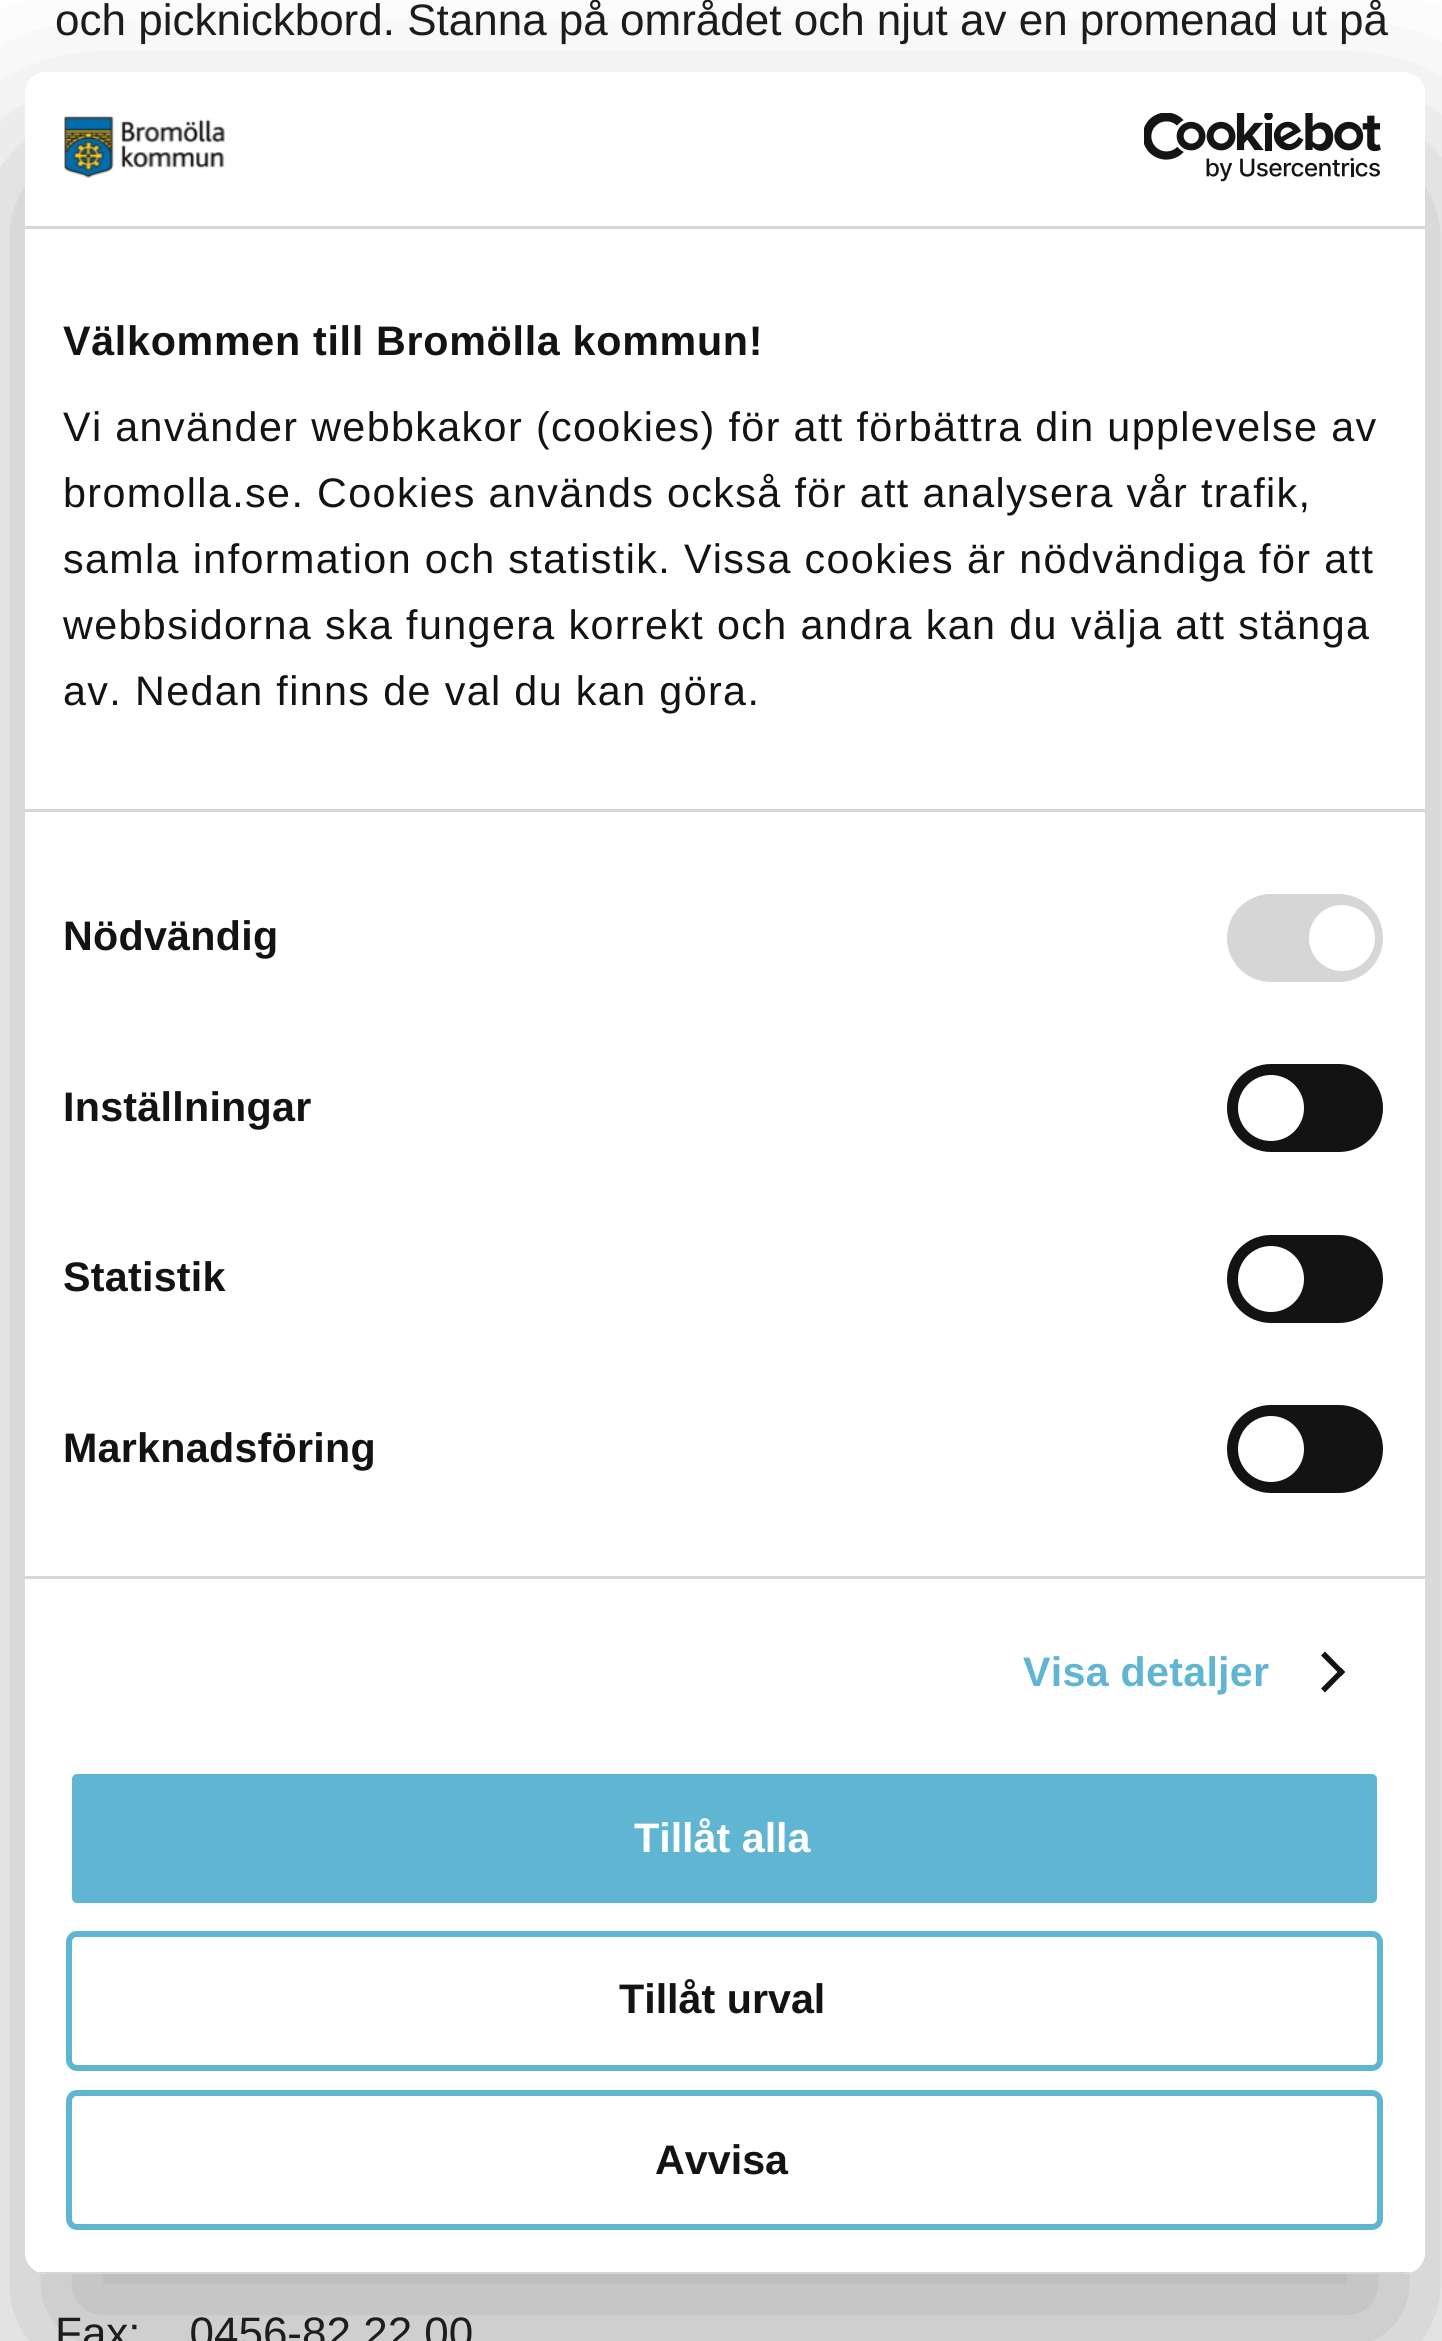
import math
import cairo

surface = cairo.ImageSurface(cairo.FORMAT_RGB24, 1442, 2341)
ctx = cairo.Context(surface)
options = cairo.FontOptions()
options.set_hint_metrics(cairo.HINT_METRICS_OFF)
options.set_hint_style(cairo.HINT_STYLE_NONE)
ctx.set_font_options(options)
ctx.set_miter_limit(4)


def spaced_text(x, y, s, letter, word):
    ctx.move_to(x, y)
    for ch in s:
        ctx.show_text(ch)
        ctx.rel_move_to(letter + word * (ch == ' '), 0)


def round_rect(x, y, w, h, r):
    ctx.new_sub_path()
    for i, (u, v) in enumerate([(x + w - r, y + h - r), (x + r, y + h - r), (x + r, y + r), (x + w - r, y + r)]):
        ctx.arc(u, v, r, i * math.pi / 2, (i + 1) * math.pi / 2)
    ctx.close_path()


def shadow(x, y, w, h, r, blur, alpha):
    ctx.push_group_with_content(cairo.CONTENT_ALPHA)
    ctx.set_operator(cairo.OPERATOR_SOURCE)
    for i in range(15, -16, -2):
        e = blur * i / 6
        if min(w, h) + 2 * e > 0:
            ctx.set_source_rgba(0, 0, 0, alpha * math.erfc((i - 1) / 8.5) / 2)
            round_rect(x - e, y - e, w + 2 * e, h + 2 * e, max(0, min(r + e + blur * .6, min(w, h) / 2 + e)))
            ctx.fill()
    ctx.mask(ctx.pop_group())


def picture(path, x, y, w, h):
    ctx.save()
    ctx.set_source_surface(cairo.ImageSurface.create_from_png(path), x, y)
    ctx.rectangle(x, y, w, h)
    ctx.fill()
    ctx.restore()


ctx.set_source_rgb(1, 1, 1)
ctx.paint()
ctx.select_font_face("Liberation Sans")
ctx.set_font_size(44)
ctx.set_source_rgb(0.114, 0.114, 0.114)
ctx.move_to(55, 35)
ctx.show_text("och picknickbord. Stanna på området och njut av en promenad ut på")
ctx.save()
ctx.set_fill_rule(cairo.FILL_RULE_EVEN_ODD)
ctx.new_path()
ctx.move_to(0, 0)
ctx.line_to(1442, 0)
ctx.line_to(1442, 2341)
ctx.line_to(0, 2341)
ctx.close_path()
ctx.move_to(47, 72)
ctx.line_to(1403, 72)
ctx.curve_to(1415, 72, 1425, 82, 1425, 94)
ctx.line_to(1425, 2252)
ctx.curve_to(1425, 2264, 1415, 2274, 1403, 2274)
ctx.line_to(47, 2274)
ctx.curve_to(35, 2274, 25, 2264, 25, 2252)
ctx.line_to(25, 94)
ctx.curve_to(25, 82, 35, 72, 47, 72)
ctx.close_path()
ctx.clip()
ctx.set_source_rgb(0, 0, 0)
shadow(25, 160, 1400, 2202, 22, 93.5, 0.3)
ctx.restore()
ctx.set_source_rgb(1, 1, 1)
round_rect(25, 72, 1400, 2202, 22)
ctx.fill()
ctx.set_source_rgb(0.839, 0.839, 0.839)
ctx.rectangle(25, 226, 1400, 3)
ctx.fill()
picture("img1.png", 64, 116, 161, 62)
picture("img2.png", 1144, 113, 237, 69)
ctx.rectangle(25, 809, 1400, 3)
ctx.fill()
ctx.select_font_face("Liberation Sans", cairo.FONT_SLANT_NORMAL, cairo.FONT_WEIGHT_BOLD)
ctx.set_font_size(41.25)
ctx.set_source_rgb(0.078, 0.078, 0.078)
spaced_text(63, 355, "Välkommen till Bromölla kommun!", 0.7, 0)
ctx.select_font_face("Liberation Sans")
spaced_text(63, 441, "Vi använder webbkakor (cookies) för att förbättra din upplevelse av", 1.38, 0)
spaced_text(63, 507, "bromolla.se. Cookies används också för att analysera vår trafik,", 1.38, 0)
spaced_text(63, 573, "samla information och statistik. Vissa cookies är nödvändiga för att", 1.38, 0)
spaced_text(63, 639, "webbsidorna ska fungera korrekt och andra kan du välja att stänga", 1.38, 0)
spaced_text(63, 705, "av. Nedan finns de val du kan göra.", 1.38, 0)
ctx.set_source_rgb(0.839, 0.839, 0.839)
ctx.rectangle(25, 1576, 1400, 3)
ctx.fill()
ctx.select_font_face("Liberation Sans", cairo.FONT_SLANT_NORMAL, cairo.FONT_WEIGHT_BOLD)
ctx.set_source_rgb(0.078, 0.078, 0.078)
spaced_text(63, 950, "Nödvändig", 0.25, 0)
ctx.set_source_rgb(0.839, 0.839, 0.839)
round_rect(1227, 894, 156, 88, 44)
ctx.fill()
ctx.set_source_rgb(1, 1, 1)
ctx.arc(1342, 938, 33, 0, 2 * math.pi)
ctx.fill()
ctx.set_source_rgb(0.078, 0.078, 0.078)
spaced_text(63, 1121, "Inställningar", 0.25, 0)
round_rect(1227, 1064, 156, 88, 44)
ctx.fill()
ctx.set_source_rgb(1, 1, 1)
ctx.arc(1271, 1108, 33, 0, 2 * math.pi)
ctx.fill()
ctx.set_source_rgb(0.078, 0.078, 0.078)
spaced_text(63, 1291, "Statistik", 0.25, 0)
round_rect(1227, 1235, 156, 88, 44)
ctx.fill()
ctx.set_source_rgb(1, 1, 1)
ctx.arc(1271, 1279, 33, 0, 2 * math.pi)
ctx.fill()
ctx.set_source_rgb(0.078, 0.078, 0.078)
spaced_text(63, 1462, "Marknadsföring", 0.25, 0)
round_rect(1227, 1405, 156, 88, 44)
ctx.fill()
ctx.set_source_rgb(1, 1, 1)
ctx.arc(1271, 1449, 33, 0, 2 * math.pi)
ctx.fill()
ctx.set_source_rgb(0.376, 0.71, 0.827)
spaced_text(1023, 1686, "Visa detaljer", 0.25, 0)
ctx.set_source_rgb(0.078, 0.078, 0.078)
ctx.new_path()
ctx.move_to(1325, 1651.5)
ctx.line_to(1345, 1672)
ctx.line_to(1341.5, 1676)
ctx.line_to(1321, 1655.5)
ctx.close_path()
ctx.fill()
ctx.new_path()
ctx.move_to(1341.5, 1668)
ctx.line_to(1345, 1672)
ctx.line_to(1325, 1692.5)
ctx.line_to(1321, 1688.5)
ctx.close_path()
ctx.fill()
ctx.save()
round_rect(25, 72, 1400, 2202, 22)
ctx.clip()
ctx.set_source_rgb(0.839, 0.839, 0.839)
ctx.rectangle(38, 2272, 1374, 2)
ctx.fill()
ctx.restore()
ctx.set_source_rgb(0.376, 0.71, 0.827)
round_rect(69, 1771, 1311, 135, 8)
ctx.fill_preserve()
ctx.set_source_rgb(1, 1, 1)
ctx.set_line_width(6)
ctx.stroke()
ctx.move_to(634, 1852)
ctx.show_text("Tillåt alla")
round_rect(69, 1934, 1311, 134, 8)
ctx.set_source_rgb(0.376, 0.71, 0.827)
ctx.stroke()
ctx.set_source_rgb(0.078, 0.078, 0.078)
ctx.move_to(619, 2013)
ctx.show_text("Tillåt urval")
round_rect(69, 2093, 1311, 134, 8)
ctx.set_source_rgb(0.376, 0.71, 0.827)
ctx.stroke()
ctx.set_source_rgb(0.078, 0.078, 0.078)
ctx.move_to(655, 2174)
ctx.show_text("Avvisa")
ctx.select_font_face("Liberation Sans")
ctx.set_font_size(44)
ctx.set_source_rgb(0.114, 0.114, 0.114)
ctx.move_to(55, 2348)
ctx.show_text("Fax:    0456-82 22 00")
surface.write_to_png("page.png")
